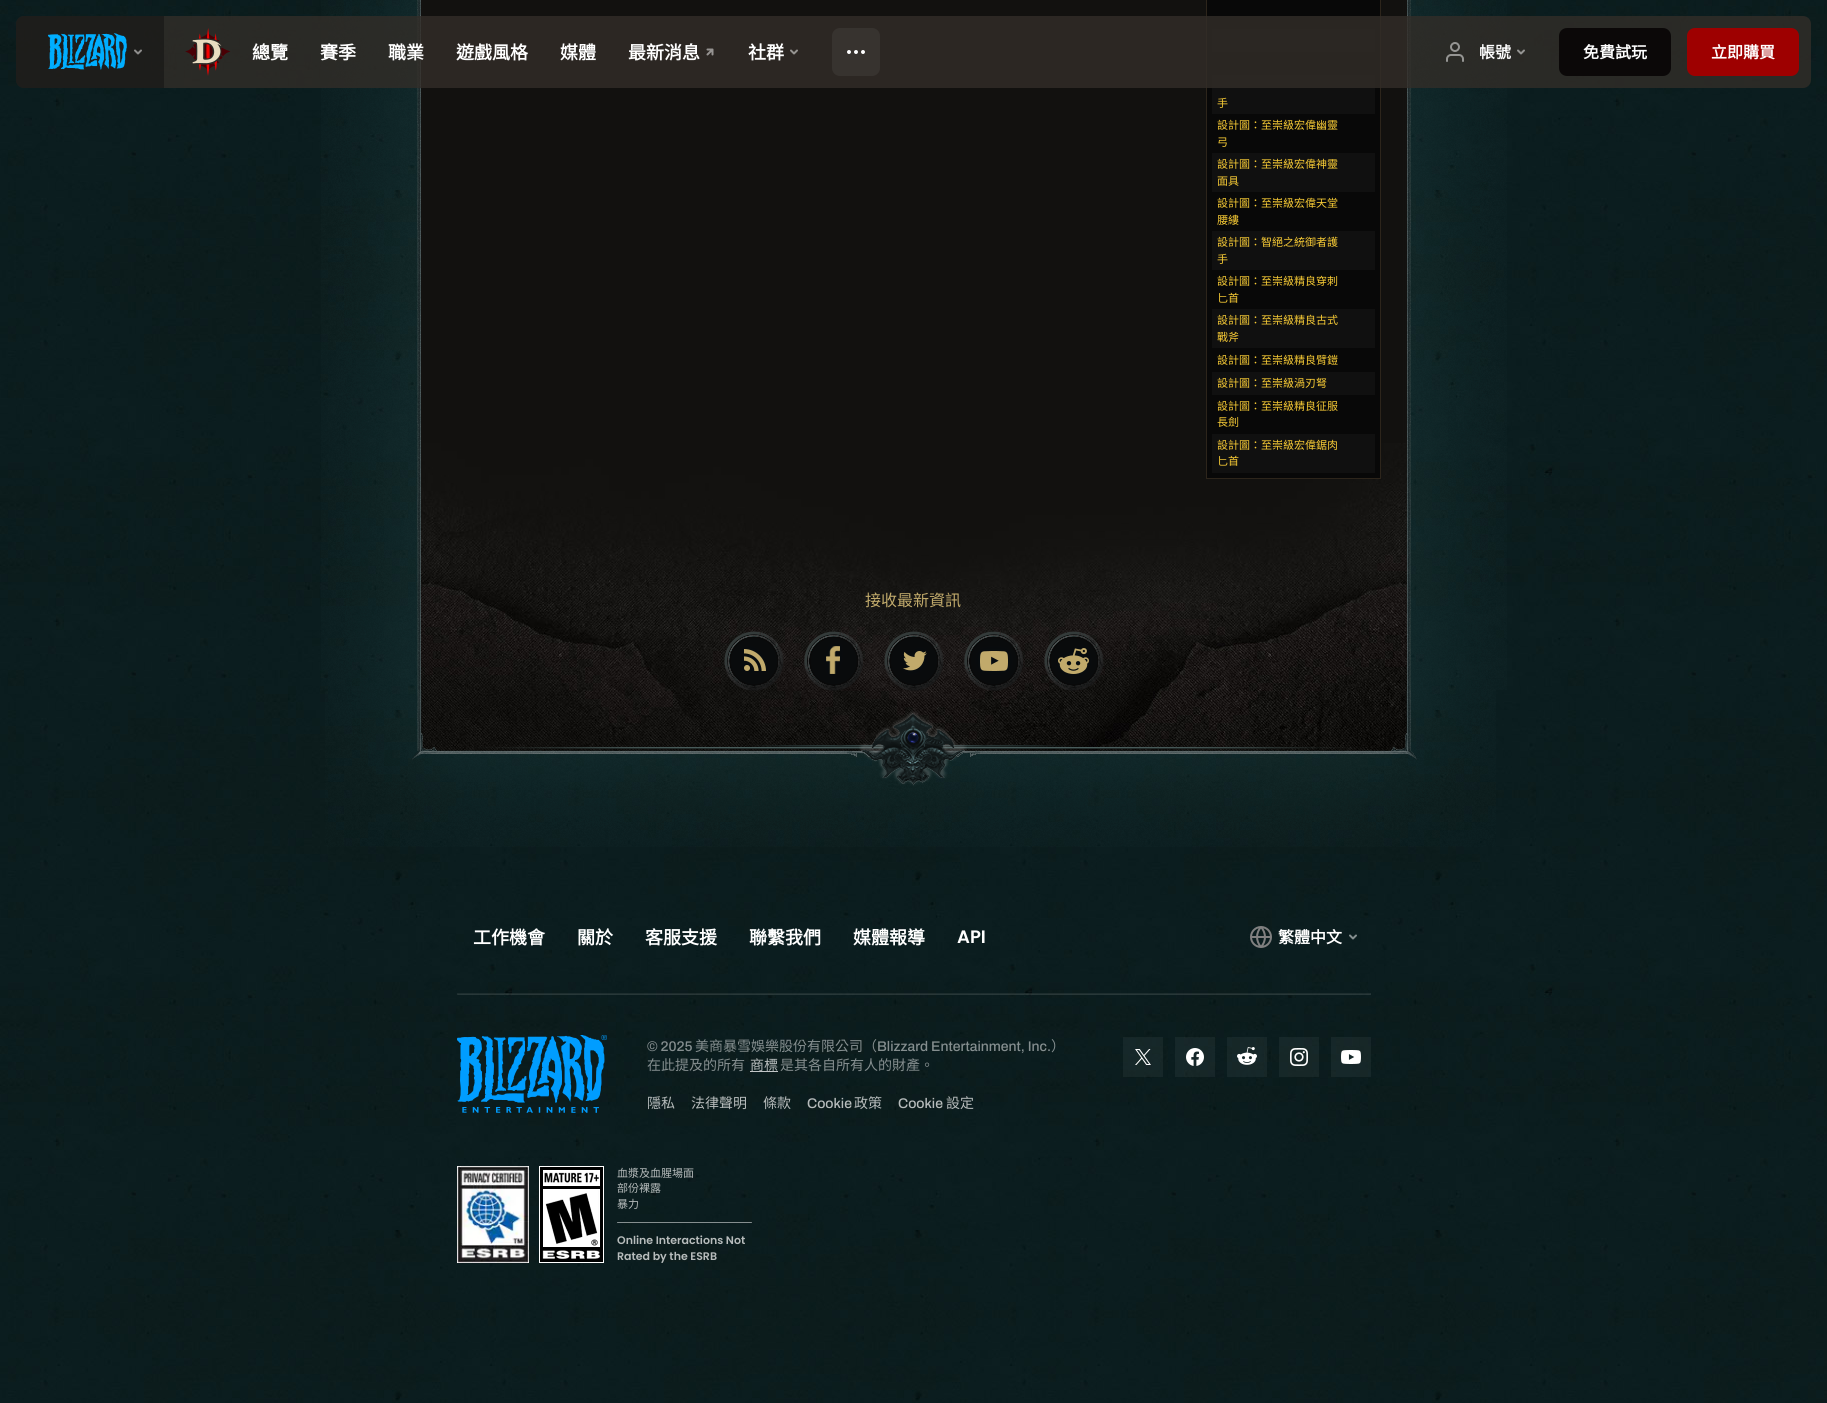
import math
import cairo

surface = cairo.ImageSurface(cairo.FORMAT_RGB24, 1827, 1403)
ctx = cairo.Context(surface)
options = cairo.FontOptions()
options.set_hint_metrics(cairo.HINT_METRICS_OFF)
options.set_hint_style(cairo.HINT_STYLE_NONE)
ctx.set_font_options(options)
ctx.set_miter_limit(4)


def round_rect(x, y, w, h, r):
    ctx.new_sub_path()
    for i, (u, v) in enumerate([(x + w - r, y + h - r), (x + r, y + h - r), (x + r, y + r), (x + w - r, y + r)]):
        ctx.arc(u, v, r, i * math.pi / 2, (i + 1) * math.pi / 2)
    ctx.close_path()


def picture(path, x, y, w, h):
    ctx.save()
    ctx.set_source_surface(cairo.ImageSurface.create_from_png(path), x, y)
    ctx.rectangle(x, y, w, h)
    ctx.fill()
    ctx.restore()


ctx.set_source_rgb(1, 1, 1)
ctx.paint()
picture("img1.png", 0, 0, 1827, 1403)
picture("img7.png", 421, 0, 986, 443)
picture("img8.png", 321, 0, 100, 690)
picture("img9.png", 421, 443, 986, 308)
ctx.set_source_rgb(0.035, 0.035, 0.035)
ctx.rectangle(1206.5, -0.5, 174, 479)
ctx.fill_preserve()
ctx.set_source_rgb(0.176, 0.145, 0.106)
ctx.set_line_width(1)
ctx.stroke()
ctx.set_source_rgb(0.063, 0.063, 0.063)
ctx.rectangle(1212, 29, 163, 23)
ctx.fill()
ctx.rectangle(1212, 75, 163, 39)
ctx.fill()
picture("img17.png", 1407, 0, 100, 690)
ctx.set_source_rgba(0.2, 0.18, 0.161, 0.8)
round_rect(16, 16, 1795, 72, 8)
ctx.fill()
ctx.set_source_rgba(0, 0, 0, 0.3)
ctx.new_path()
ctx.move_to(24, 16)
ctx.line_to(164, 16)
ctx.line_to(164, 88)
ctx.line_to(24, 88)
ctx.curve_to(19.5, 88, 16, 84.5, 16, 80)
ctx.line_to(16, 24)
ctx.curve_to(16, 19.5, 19.5, 16, 24, 16)
ctx.close_path()
ctx.fill()
picture("img2.png", 48, 33, 79, 37)
ctx.new_path()
ctx.move_to(135, 50.5)
ctx.line_to(138, 53.5)
ctx.line_to(141, 50.5)
ctx.set_source_rgb(0.561, 0.557, 0.553)
ctx.set_line_width(2)
ctx.set_line_cap(cairo.LINE_CAP_ROUND)
ctx.set_line_join(cairo.LINE_JOIN_ROUND)
ctx.stroke()
picture("img3.png", 185, 28, 46, 48)
ctx.select_font_face("Noto Sans CJK TC", cairo.FONT_SLANT_NORMAL, cairo.FONT_WEIGHT_BOLD)
ctx.set_font_size(18)
ctx.set_source_rgb(1, 1, 1)
ctx.move_to(252, 59)
ctx.show_text("總覽")
ctx.move_to(320, 59)
ctx.show_text("賽季")
ctx.move_to(388, 59)
ctx.show_text("職業")
ctx.move_to(456, 59)
ctx.show_text("遊戲風格")
ctx.move_to(560, 59)
ctx.show_text("媒體")
ctx.move_to(628, 59)
ctx.show_text("最新消息")
picture("img4.png", 706, 48, 8, 8)
ctx.move_to(748, 59)
ctx.show_text("社群")
ctx.new_path()
ctx.move_to(791, 50.5)
ctx.line_to(794, 53.5)
ctx.line_to(797, 50.5)
ctx.set_source_rgb(0.588, 0.58, 0.569)
ctx.stroke()
ctx.set_source_rgb(0.216, 0.2, 0.184)
round_rect(832, 28, 48, 48, 8)
ctx.fill()
picture("img5.png", 847, 50, 18, 4)
picture("img6.png", 1446, 42, 18, 20)
ctx.set_font_size(16)
ctx.set_source_rgb(1, 1, 1)
ctx.move_to(1479, 58)
ctx.show_text("帳號")
ctx.new_path()
ctx.move_to(1518, 50.5)
ctx.line_to(1521, 53.5)
ctx.line_to(1524, 50.5)
ctx.set_source_rgb(0.584, 0.584, 0.576)
ctx.stroke()
ctx.set_source_rgb(0.043, 0.035, 0.035)
round_rect(1559, 28, 112, 48, 8)
ctx.fill()
ctx.set_source_rgb(1, 1, 1)
ctx.move_to(1583, 58)
ctx.show_text("免費試玩")
ctx.set_source_rgb(0.62, 0, 0)
round_rect(1687, 28, 112, 48, 8)
ctx.fill()
ctx.set_source_rgb(1, 1, 1)
ctx.move_to(1711, 58)
ctx.show_text("立即購買")
ctx.select_font_face("Noto Sans CJK TC")
ctx.set_font_size(11)
ctx.set_source_rgb(0.973, 0.8, 0.208)
ctx.move_to(1217, 107)
ctx.show_text("手")
ctx.move_to(1217, 129)
ctx.show_text("設計圖：至崇級宏偉幽靈")
ctx.move_to(1217, 146)
ctx.show_text("弓")
ctx.set_source_rgb(0.063, 0.063, 0.063)
ctx.rectangle(1212, 153, 163, 39)
ctx.fill()
ctx.set_source_rgb(0.973, 0.8, 0.208)
ctx.move_to(1217, 168)
ctx.show_text("設計圖：至崇級宏偉神靈")
ctx.move_to(1217, 185)
ctx.show_text("面具")
ctx.move_to(1217, 207)
ctx.show_text("設計圖：至崇級宏偉天堂")
ctx.move_to(1217, 224)
ctx.show_text("腰縷")
ctx.set_source_rgb(0.063, 0.063, 0.063)
ctx.rectangle(1212, 231, 163, 39)
ctx.fill()
ctx.set_source_rgb(0.973, 0.8, 0.208)
ctx.move_to(1217, 246)
ctx.show_text("設計圖：智絕之統御者護")
ctx.move_to(1217, 263)
ctx.show_text("手")
ctx.move_to(1217, 285)
ctx.show_text("設計圖：至崇級精良穿刺")
ctx.move_to(1217, 302)
ctx.show_text("匕首")
ctx.set_source_rgb(0.063, 0.063, 0.063)
ctx.rectangle(1212, 309, 163, 39)
ctx.fill()
ctx.set_source_rgb(0.973, 0.8, 0.208)
ctx.move_to(1217, 324)
ctx.show_text("設計圖：至崇級精良古式")
ctx.move_to(1217, 341)
ctx.show_text("戰斧")
ctx.move_to(1217, 364)
ctx.show_text("設計圖：至崇級精良臂鎧")
ctx.set_source_rgb(0.063, 0.063, 0.063)
ctx.rectangle(1212, 372, 163, 23)
ctx.fill()
ctx.set_source_rgb(0.973, 0.8, 0.208)
ctx.move_to(1217, 387)
ctx.show_text("設計圖：至崇級渦刃弩")
ctx.move_to(1217, 410)
ctx.show_text("設計圖：至崇級精良征服")
ctx.move_to(1217, 426)
ctx.show_text("長劍")
ctx.set_source_rgb(0.063, 0.063, 0.063)
ctx.rectangle(1212, 434, 163, 39)
ctx.fill()
ctx.set_source_rgb(0.973, 0.8, 0.208)
ctx.move_to(1217, 449)
ctx.show_text("設計圖：至崇級宏偉鋸肉")
ctx.move_to(1217, 465)
ctx.show_text("匕首")
ctx.set_font_size(16)
ctx.set_source_rgb(0.757, 0.667, 0.42)
ctx.move_to(865, 606)
ctx.show_text("接收最新資訊")
picture("img10.png", 724, 631, 60, 60)
picture("img11.png", 804, 631, 59, 60)
picture("img12.png", 884, 631, 60, 60)
picture("img13.png", 964, 631, 59, 60)
picture("img14.png", 1044, 631, 60, 60)
picture("img15.png", 325, 690, 1171, 157)
picture("img16.png", 859, 711, 108, 75)
ctx.select_font_face("Noto Sans CJK TC", cairo.FONT_SLANT_NORMAL, cairo.FONT_WEIGHT_BOLD)
ctx.set_font_size(18)
ctx.set_source_rgb(1, 1, 1)
ctx.move_to(473, 944)
ctx.show_text("工作機會")
ctx.move_to(577, 944)
ctx.show_text("關於")
ctx.move_to(645, 944)
ctx.show_text("客服支援")
ctx.move_to(749, 944)
ctx.show_text("聯繫我們")
ctx.move_to(853, 944)
ctx.show_text("媒體報導")
ctx.select_font_face("Poppins SemiBold")
ctx.move_to(957, 943)
ctx.show_text("API")
picture("img18.png", 1250, 926, 22, 22)
ctx.select_font_face("Noto Sans CJK TC", cairo.FONT_SLANT_NORMAL, cairo.FONT_WEIGHT_BOLD)
ctx.set_font_size(16)
ctx.move_to(1278, 943)
ctx.show_text("繁體中文")
ctx.new_path()
ctx.move_to(1350, 935.5)
ctx.line_to(1353, 938.5)
ctx.line_to(1356, 935.5)
ctx.set_source_rgb(0.522, 0.557, 0.561)
ctx.stroke()
ctx.set_source_rgba(0.667, 0.667, 0.667, 0.12)
ctx.new_path()
ctx.move_to(457, 993)
ctx.line_to(1371, 993)
ctx.line_to(1370, 994)
ctx.line_to(458, 994)
ctx.close_path()
ctx.fill()
ctx.set_source_rgba(1, 1, 1, 0.12)
ctx.new_path()
ctx.move_to(1371, 993)
ctx.line_to(1371, 995)
ctx.line_to(1370, 994)
ctx.close_path()
ctx.fill()
ctx.new_path()
ctx.move_to(1371, 995)
ctx.line_to(457, 995)
ctx.line_to(458, 994)
ctx.line_to(1370, 994)
ctx.close_path()
ctx.fill()
ctx.set_source_rgba(0.667, 0.667, 0.667, 0.12)
ctx.new_path()
ctx.move_to(457, 995)
ctx.line_to(457, 993)
ctx.line_to(458, 994)
ctx.close_path()
ctx.fill()
picture("img19.png", 457, 1035, 150, 78)
ctx.select_font_face("Archivo Medium")
ctx.set_font_size(14)
ctx.set_source_rgb(0.522, 0.557, 0.561)
ctx.move_to(647, 1051)
ctx.show_text("© 2025")
ctx.select_font_face("Noto Sans CJK TC")
ctx.move_to(695, 1051)
ctx.show_text("美商暴雪娛樂股份有限公司（")
ctx.select_font_face("Archivo Medium")
ctx.move_to(877, 1051)
ctx.show_text("Blizzard Entertainment, Inc.")
ctx.select_font_face("Noto Sans CJK TC")
ctx.move_to(1051, 1051)
ctx.show_text("）")
ctx.move_to(647, 1070)
ctx.show_text("在此提及的所有")
ctx.set_source_rgb(0.761, 0.776, 0.78)
ctx.rectangle(750, 1071, 28, 1)
ctx.fill()
ctx.set_source_rgb(0.718, 0.737, 0.737)
ctx.move_to(750, 1070)
ctx.show_text("商標")
ctx.set_source_rgb(0.522, 0.557, 0.561)
ctx.move_to(780, 1070)
ctx.show_text("是其各自所有人的財產。")
ctx.set_source_rgb(0.718, 0.737, 0.737)
ctx.move_to(647, 1108)
ctx.show_text("隱私")
ctx.move_to(691, 1108)
ctx.show_text("法律聲明")
ctx.move_to(763, 1108)
ctx.show_text("條款")
ctx.select_font_face("Archivo Medium")
ctx.move_to(807, 1108)
ctx.show_text("Cookie")
ctx.select_font_face("Noto Sans CJK TC")
ctx.move_to(854, 1108)
ctx.show_text("政策")
ctx.select_font_face("Archivo Medium")
ctx.move_to(898, 1108)
ctx.show_text("Cookie")
ctx.select_font_face("Noto Sans CJK TC")
ctx.move_to(946, 1108)
ctx.show_text("設定")
ctx.set_source_rgba(1, 1, 1, 0.05)
ctx.rectangle(1123, 1037, 40, 40)
ctx.fill()
picture("img20.png", 1135, 1049, 16, 16)
ctx.rectangle(1175, 1037, 40, 40)
ctx.fill()
picture("img21.png", 1186, 1048, 18, 18)
ctx.rectangle(1227, 1037, 40, 40)
ctx.fill()
picture("img22.png", 1237, 1047, 20, 18)
ctx.rectangle(1279, 1037, 40, 40)
ctx.fill()
picture("img23.png", 1290, 1048, 18, 18)
ctx.rectangle(1331, 1037, 40, 40)
ctx.fill()
picture("img24.png", 1341, 1050, 20, 14)
picture("img25.png", 457, 1166, 72, 97)
picture("img26.png", 539, 1166, 65, 97)
ctx.set_font_size(11)
ctx.set_source_rgb(0.718, 0.737, 0.737)
ctx.move_to(617, 1177)
ctx.show_text("血漿及血腥場面")
ctx.move_to(617, 1192)
ctx.show_text("部份裸露")
ctx.move_to(617, 1208)
ctx.show_text("暴力")
ctx.set_source_rgba(1, 1, 1, 0.5)
ctx.new_path()
ctx.move_to(617, 1222)
ctx.line_to(752, 1222)
ctx.line_to(751, 1223)
ctx.line_to(618, 1223)
ctx.close_path()
ctx.fill()
ctx.set_source_rgb(0.639, 0.667, 0.671)
ctx.new_path()
ctx.move_to(752, 1222)
ctx.line_to(752, 1223)
ctx.line_to(751, 1223)
ctx.close_path()
ctx.fill()
ctx.set_source_rgb(0.635, 0.663, 0.667)
ctx.new_path()
ctx.move_to(617, 1223)
ctx.line_to(617, 1222)
ctx.line_to(618, 1223)
ctx.close_path()
ctx.fill()
ctx.select_font_face("Poppins SemiBold")
ctx.set_source_rgb(0.718, 0.737, 0.737)
ctx.move_to(617, 1244)
ctx.show_text("Online Interactions Not")
ctx.move_to(617, 1260)
ctx.show_text("Rated by the ESRB")
surface.write_to_png("page.png")
